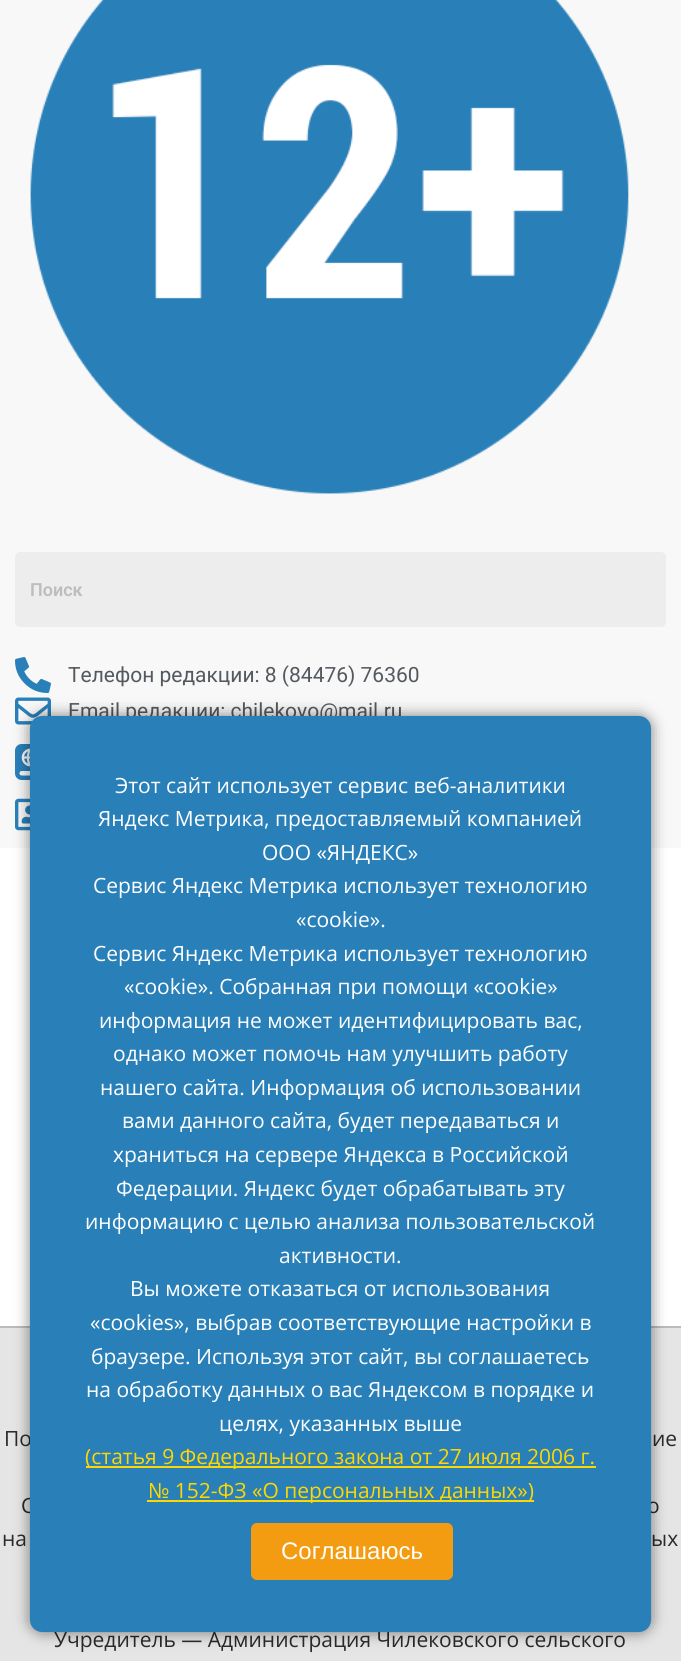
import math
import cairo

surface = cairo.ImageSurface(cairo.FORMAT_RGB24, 681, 1661)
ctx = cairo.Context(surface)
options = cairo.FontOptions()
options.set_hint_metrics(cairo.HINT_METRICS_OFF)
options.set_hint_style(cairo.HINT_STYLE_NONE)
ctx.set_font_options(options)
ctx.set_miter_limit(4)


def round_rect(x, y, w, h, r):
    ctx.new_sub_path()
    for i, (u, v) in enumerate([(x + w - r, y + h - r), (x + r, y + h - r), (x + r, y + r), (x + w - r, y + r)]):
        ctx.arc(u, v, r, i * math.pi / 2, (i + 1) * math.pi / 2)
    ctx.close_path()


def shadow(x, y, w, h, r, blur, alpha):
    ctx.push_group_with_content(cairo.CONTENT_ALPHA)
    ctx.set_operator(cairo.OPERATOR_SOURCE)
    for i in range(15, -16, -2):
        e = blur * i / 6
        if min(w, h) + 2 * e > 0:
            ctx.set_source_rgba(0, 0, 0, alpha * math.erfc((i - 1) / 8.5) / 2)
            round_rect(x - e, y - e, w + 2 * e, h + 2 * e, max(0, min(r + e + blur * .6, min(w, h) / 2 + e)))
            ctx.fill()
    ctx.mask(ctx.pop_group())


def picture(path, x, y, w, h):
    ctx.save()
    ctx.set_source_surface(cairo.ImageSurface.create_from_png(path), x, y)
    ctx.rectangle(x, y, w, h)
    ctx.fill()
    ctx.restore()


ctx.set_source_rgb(0.969, 0.969, 0.969)
ctx.paint()
picture("img1.png", 30, 0, 599, 494)
ctx.set_source_rgb(0.929, 0.929, 0.929)
round_rect(15, 552, 651, 75, 5)
ctx.fill()
ctx.select_font_face("Roboto SemiBold")
ctx.set_font_size(18)
ctx.set_source_rgb(0.741, 0.741, 0.741)
ctx.move_to(30, 596)
ctx.show_text("Поиск")
picture("img2.png", 15, 657, 36, 36)
ctx.select_font_face("Roboto")
ctx.set_font_size(21)
ctx.set_source_rgb(0.329, 0.349, 0.373)
ctx.move_to(68, 682)
ctx.show_text("Телефон редакции: 8 (84476) 76360")
picture("img3.png", 15, 697, 36, 28)
ctx.move_to(68, 718)
ctx.show_text("Email редакции: chilekovo@mail.ru")
picture("img4.png", 15, 744, 15, 36)
picture("img5.png", 15, 798, 15, 33)
ctx.set_source_rgb(1, 1, 1)
ctx.rectangle(0, 848, 681, 478)
ctx.fill()
ctx.set_source_rgb(0.898, 0.898, 0.898)
ctx.rectangle(0, 1328, 681, 333)
ctx.fill()
ctx.set_source_rgb(0.733, 0.733, 0.733)
ctx.rectangle(0, 1326, 681, 2)
ctx.fill()
ctx.select_font_face("Open Sans")
ctx.set_source_rgb(0.165, 0.165, 0.165)
ctx.move_to(4, 1446)
ctx.show_text("По")
ctx.move_to(652, 1446)
ctx.show_text("ие")
ctx.move_to(21, 1513)
ctx.show_text("С")
ctx.move_to(647, 1513)
ctx.show_text("о")
ctx.move_to(2, 1546)
ctx.show_text("на")
ctx.move_to(651, 1546)
ctx.show_text("ых")
ctx.move_to(54, 1647)
ctx.show_text("Учредитель — Администрация Чилековского сельского")
ctx.set_source_rgb(0, 0, 0)
shadow(30, 716, 621, 916, 12, 7.5, 0.5)
ctx.set_source_rgb(0.161, 0.502, 0.725)
round_rect(30, 716, 621, 916, 12)
ctx.fill()
ctx.set_source_rgb(1, 1, 1)
ctx.move_to(115, 793)
ctx.show_text("Этот сайт использует сервис веб-аналитики")
ctx.move_to(98, 826)
ctx.show_text("Яндекс Метрика, предоставляемый компанией")
ctx.move_to(262, 860)
ctx.show_text("ООО «ЯНДЕКС»")
ctx.move_to(93, 893)
ctx.show_text("Сервис Яндекс Метрика использует технологию")
ctx.move_to(296, 927)
ctx.show_text("«cookie».")
ctx.move_to(93, 961)
ctx.show_text("Сервис Яндекс Метрика использует технологию")
ctx.move_to(124, 994)
ctx.show_text("«cookie». Собранная при помощи «cookie»")
ctx.move_to(99, 1028)
ctx.show_text("информация не может идентифицировать вас,")
ctx.move_to(113, 1061)
ctx.show_text("однако может помочь нам улучшить работу")
ctx.move_to(100, 1095)
ctx.show_text("нашего сайта. Информация об использовании")
ctx.move_to(122, 1128)
ctx.show_text("вами данного сайта, будет передаваться и")
ctx.move_to(113, 1162)
ctx.show_text("храниться на сервере Яндекса в Российской")
ctx.move_to(116, 1196)
ctx.show_text("Федерации. Яндекс будет обрабатывать эту")
ctx.move_to(85, 1229)
ctx.show_text("информацию с целью анализа пользовательской")
ctx.move_to(279, 1263)
ctx.show_text("активности.")
ctx.move_to(130, 1296)
ctx.show_text("Вы можете отказаться от использования")
ctx.move_to(90, 1330)
ctx.show_text("«cookies», выбрав соответствующие настройки в")
ctx.move_to(91, 1364)
ctx.show_text("браузере. Используя этот сайт, вы соглашаетесь")
ctx.move_to(86, 1397)
ctx.show_text("на обработку данных о вас Яндексом в порядке и")
ctx.move_to(219, 1431)
ctx.show_text("целях, указанных выше")
ctx.set_source_rgb(1, 0.843, 0)
ctx.rectangle(86, 1466, 510, 2)
ctx.fill()
ctx.move_to(85, 1464)
ctx.show_text("(статья 9 Федерального закона от 27 июля 2006 г.")
ctx.rectangle(147, 1500, 387, 2)
ctx.fill()
ctx.move_to(148, 1498)
ctx.show_text("№ 152-ФЗ «О персональных данных»)")
ctx.set_source_rgb(0.953, 0.612, 0.071)
round_rect(251, 1523, 202, 57, 6)
ctx.fill()
ctx.select_font_face("Liberation Sans")
ctx.set_font_size(24)
ctx.set_source_rgb(1, 1, 1)
ctx.move_to(281, 1559)
ctx.show_text("Соглашаюсь")
surface.write_to_png("page.png")
